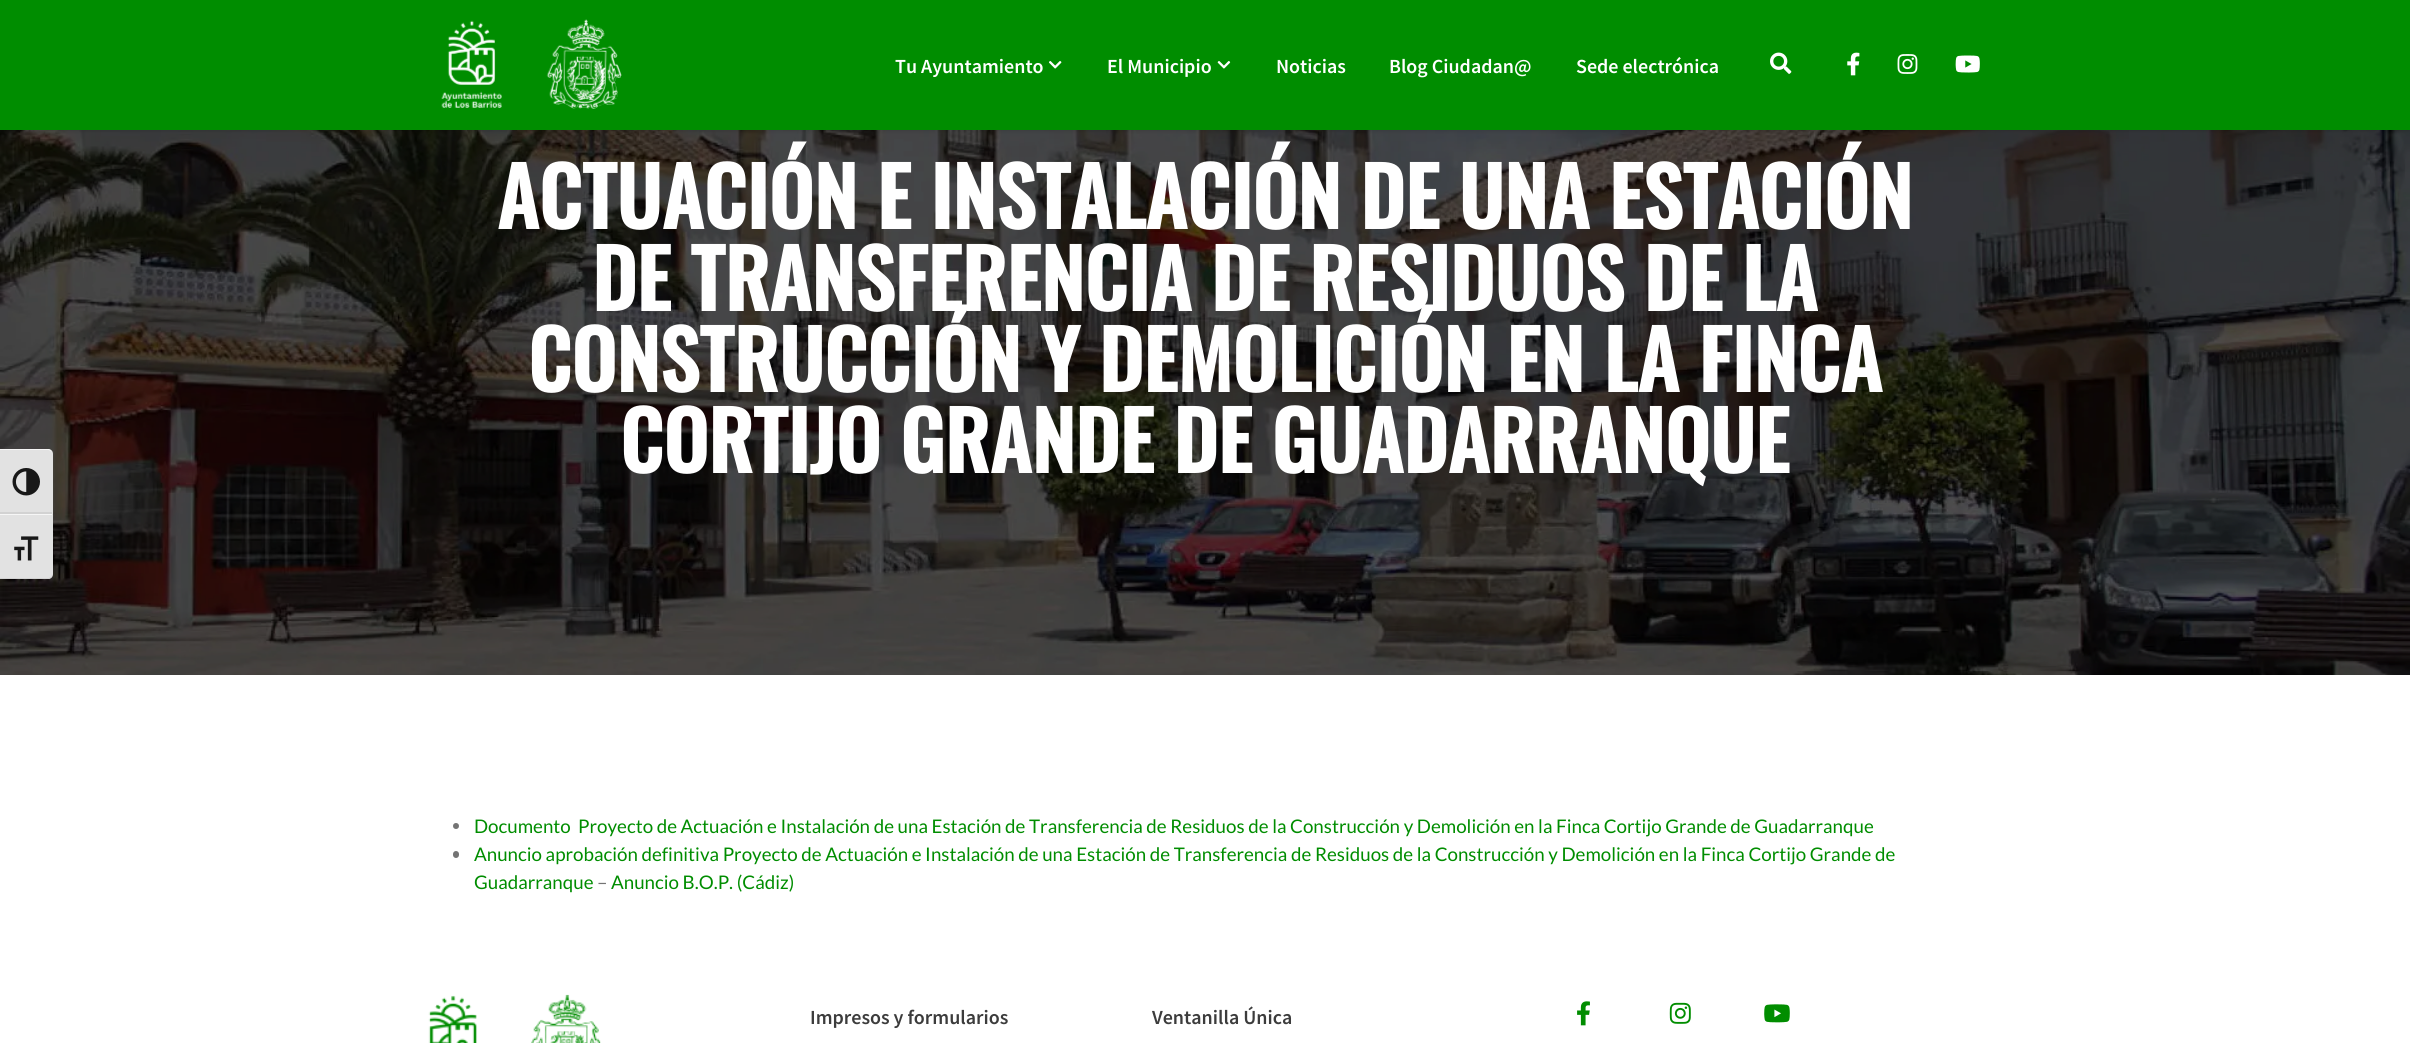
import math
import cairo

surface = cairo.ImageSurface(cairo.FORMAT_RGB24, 2410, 1043)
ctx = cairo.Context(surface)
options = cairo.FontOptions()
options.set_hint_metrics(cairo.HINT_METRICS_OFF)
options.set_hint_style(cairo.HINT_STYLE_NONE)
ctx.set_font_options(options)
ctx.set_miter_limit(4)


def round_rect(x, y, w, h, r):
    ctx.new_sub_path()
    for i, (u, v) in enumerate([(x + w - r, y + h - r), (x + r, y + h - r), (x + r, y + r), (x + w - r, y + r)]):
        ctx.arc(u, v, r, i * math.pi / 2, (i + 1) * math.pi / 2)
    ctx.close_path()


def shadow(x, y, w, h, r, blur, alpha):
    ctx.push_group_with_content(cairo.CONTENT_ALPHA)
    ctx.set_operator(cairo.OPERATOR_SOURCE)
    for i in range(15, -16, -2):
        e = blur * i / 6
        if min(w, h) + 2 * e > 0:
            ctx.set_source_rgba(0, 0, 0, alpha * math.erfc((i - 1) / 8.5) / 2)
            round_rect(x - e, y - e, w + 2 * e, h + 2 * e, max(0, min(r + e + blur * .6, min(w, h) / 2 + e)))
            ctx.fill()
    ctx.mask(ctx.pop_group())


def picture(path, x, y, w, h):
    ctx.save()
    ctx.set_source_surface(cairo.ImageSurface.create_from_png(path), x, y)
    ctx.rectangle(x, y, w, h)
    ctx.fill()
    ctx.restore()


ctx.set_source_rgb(1, 1, 1)
ctx.paint()
picture("img10.png", 0, 130, 2410, 545)
ctx.set_source_rgb(0.886, 0.886, 0.886)
ctx.new_path()
ctx.move_to(0, 449)
ctx.line_to(48, 449)
ctx.curve_to(51, 449, 53, 451, 53, 454)
ctx.line_to(53, 514)
ctx.line_to(0, 514)
ctx.close_path()
ctx.fill()
ctx.set_source_rgb(0.961, 0.961, 0.961)
ctx.new_path()
ctx.move_to(0, 450)
ctx.line_to(48, 450)
ctx.curve_to(50, 450, 52, 452, 52, 454)
ctx.curve_to(52, 451, 50, 449, 48, 449)
ctx.line_to(0, 449)
ctx.close_path()
ctx.fill()
ctx.set_source_rgb(0.824, 0.824, 0.824)
ctx.rectangle(0, 512, 52, 2)
ctx.fill()
picture("img1.png", 12, 468, 28, 28)
ctx.set_source_rgb(0.886, 0.886, 0.886)
ctx.new_path()
ctx.move_to(0, 514)
ctx.line_to(53, 514)
ctx.line_to(53, 574)
ctx.curve_to(53, 577, 51, 579, 48, 579)
ctx.line_to(0, 579)
ctx.close_path()
ctx.fill()
ctx.set_source_rgb(0.961, 0.961, 0.961)
ctx.rectangle(0, 514, 52, 1)
ctx.fill()
ctx.set_source_rgb(0.824, 0.824, 0.824)
ctx.new_path()
ctx.move_to(49, 579)
ctx.curve_to(51, 578, 52, 576, 52, 574)
ctx.curve_to(52, 576, 50, 578, 48, 578)
ctx.line_to(0, 578)
ctx.line_to(0, 579)
ctx.close_path()
ctx.fill()
picture("img2.png", 14, 536, 25, 25)
ctx.set_source_rgb(0, 0, 0)
shadow(0, 1, 2410, 130, 0, 2, 0.12)
ctx.set_source_rgb(0, 0.553, 0)
ctx.rectangle(0, 0, 2410, 130)
ctx.fill()
picture("img3.png", 441, 19, 181, 90)
ctx.select_font_face("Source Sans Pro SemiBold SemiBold")
ctx.set_font_size(20)
ctx.set_source_rgb(1, 1, 1)
ctx.move_to(895, 73)
ctx.show_text("Tu Ayuntamiento")
picture("img4.png", 1049, 61, 13, 8)
ctx.move_to(1107, 73)
ctx.show_text("El Municipio")
picture("img5.png", 1217, 61, 14, 8)
ctx.move_to(1276, 73)
ctx.show_text("Noticias")
ctx.move_to(1389, 73)
ctx.show_text("Blog Ciudadan@")
ctx.move_to(1576, 73)
ctx.show_text("Sede electrónica")
picture("img6.png", 1770, 52, 22, 22)
picture("img7.png", 1847, 52, 13, 24)
picture("img8.png", 1897, 54, 21, 20)
picture("img9.png", 1955, 55, 25, 18)
ctx.select_font_face("Oswald", cairo.FONT_SLANT_NORMAL, cairo.FONT_WEIGHT_BOLD)
ctx.set_font_size(80)
ctx.move_to(497, 229)
ctx.show_text("ACTUACIÓN E INSTALACIÓN DE UNA ESTACIÓN")
ctx.move_to(592, 311)
ctx.show_text("DE TRANSFERENCIA DE RESIDUOS DE LA")
ctx.move_to(528, 392)
ctx.show_text("CONSTRUCCIÓN Y DEMOLICIÓN EN LA FINCA")
ctx.move_to(620, 473)
ctx.show_text("CORTIJO GRANDE DE GUADARRANQUE")
ctx.set_source_rgb(0.455, 0.455, 0.455)
ctx.new_path()
ctx.arc(456, 826, 3, 0, 2 * math.pi)
ctx.fill()
ctx.select_font_face("Lato")
ctx.set_font_size(18.75)
ctx.set_source_rgb(0, 0.553, 0)
ctx.move_to(474, 833)
ctx.show_text("Documento  Proyecto de Actuación e Instalación de una Estación de Transferencia de Residuos de la Construcción y Demolición en la Finca Cortijo Grande de Guadarranque")
ctx.set_source_rgb(0.455, 0.455, 0.455)
round_rect(453, 851, 6, 7, 3)
ctx.fill()
ctx.set_source_rgb(0, 0.553, 0)
ctx.move_to(474, 861)
ctx.show_text("Anuncio aprobación definitiva Proyecto de Actuación e Instalación de una Estación de Transferencia de Residuos de la Construcción y Demolición en la Finca Cortijo Grande de")
ctx.move_to(474, 889)
ctx.show_text("Guadarranque")
ctx.set_source_rgb(0.455, 0.455, 0.455)
ctx.move_to(597, 889)
ctx.show_text("–")
ctx.set_source_rgb(0, 0.553, 0)
ctx.move_to(611, 889)
ctx.show_text("Anuncio B.O.P. (Cádiz)")
picture("img11.png", 428, 994, 173, 49)
ctx.select_font_face("Source Sans Pro SemiBold SemiBold")
ctx.set_font_size(20)
ctx.set_source_rgb(0.235, 0.235, 0.235)
ctx.move_to(810, 1024)
ctx.show_text("Impresos y formularios")
ctx.move_to(1152, 1024)
ctx.show_text("Ventanilla Única")
picture("img12.png", 1577, 1001, 13, 25)
picture("img13.png", 1669, 1002, 22, 22)
picture("img14.png", 1764, 1004, 26, 19)
surface.write_to_png("page.png")
